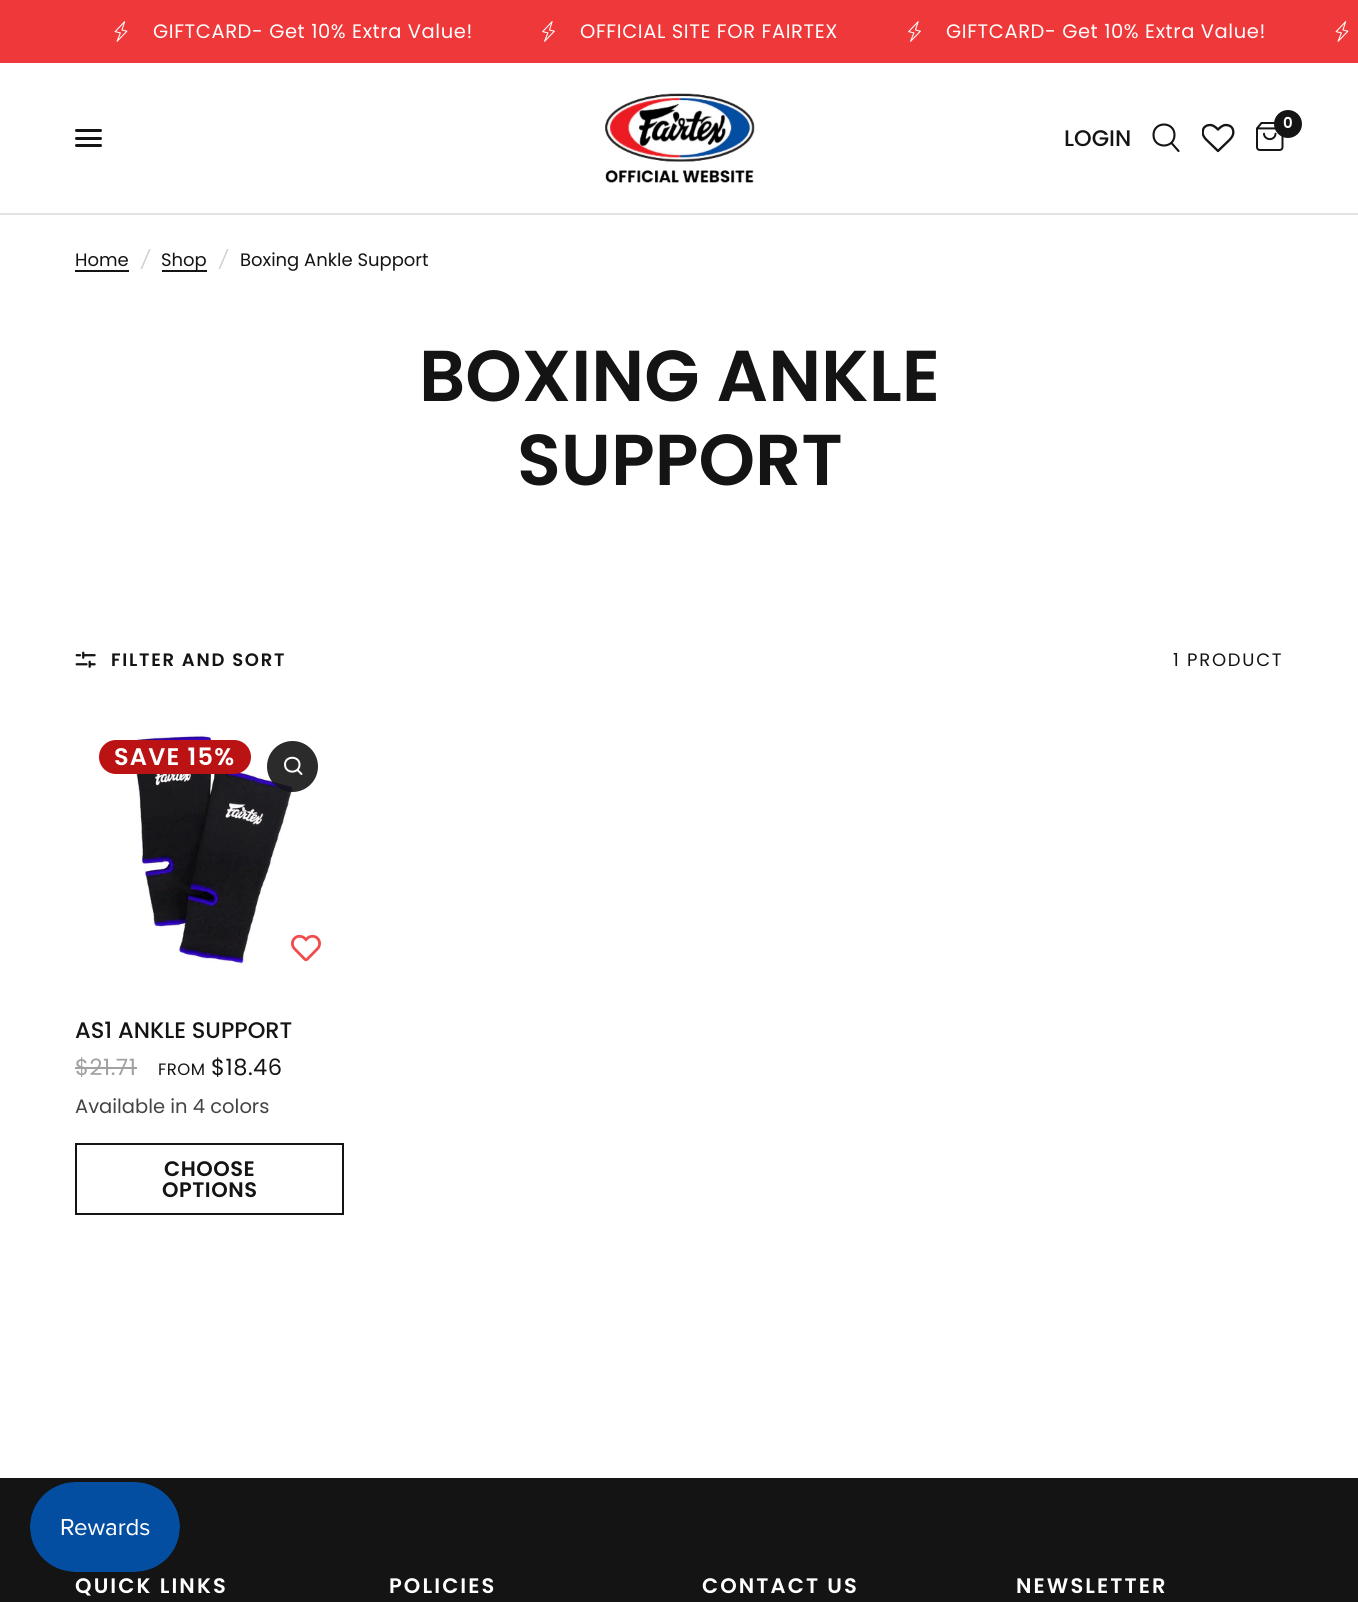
import math
import cairo

surface = cairo.ImageSurface(cairo.FORMAT_RGB24, 1358, 1602)
ctx = cairo.Context(surface)
options = cairo.FontOptions()
options.set_hint_metrics(cairo.HINT_METRICS_OFF)
options.set_hint_style(cairo.HINT_STYLE_NONE)
ctx.set_font_options(options)
ctx.set_miter_limit(4)


def spaced_text(x, y, s, letter, word):
    ctx.move_to(x, y)
    for ch in s:
        ctx.show_text(ch)
        ctx.rel_move_to(letter + word * (ch == ' '), 0)


def round_rect(x, y, w, h, r):
    ctx.new_sub_path()
    for i, (u, v) in enumerate([(x + w - r, y + h - r), (x + r, y + h - r), (x + r, y + r), (x + w - r, y + r)]):
        ctx.arc(u, v, r, i * math.pi / 2, (i + 1) * math.pi / 2)
    ctx.close_path()


def picture(path, x, y, w, h):
    ctx.save()
    ctx.set_source_surface(cairo.ImageSurface.create_from_png(path), x, y)
    ctx.rectangle(x, y, w, h)
    ctx.fill()
    ctx.restore()


ctx.set_source_rgb(1, 1, 1)
ctx.paint()
ctx.set_source_rgb(0.937, 0.22, 0.227)
ctx.rectangle(0, 0, 1358, 63)
ctx.fill()
picture("img1.png", 114, 21, 14, 21)
ctx.select_font_face("Poppins")
ctx.set_font_size(19.5)
ctx.set_source_rgb(1, 1, 1)
spaced_text(153, 38, "GIFTCARD- Get 10% Extra Value!", 0.6, 0)
picture("img2.png", 542, 21, 13, 21)
spaced_text(580, 38, "OFFICIAL SITE FOR FAIRTEX", 0.6, 0)
picture("img2.png", 908, 21, 13, 21)
spaced_text(946, 38, "GIFTCARD- Get 10% Extra Value!", 0.6, 0)
picture("img1.png", 1335, 21, 14, 21)
ctx.set_source_rgb(0.886, 0.886, 0.886)
ctx.rectangle(0, 213, 1358, 2)
ctx.fill()
ctx.set_source_rgb(0.082, 0.082, 0.082)
round_rect(75, 129, 27, 3, 1.5)
ctx.fill()
round_rect(75, 137, 27, 3, 1.5)
ctx.fill()
round_rect(75, 144, 27, 3, 1.5)
ctx.fill()
picture("img3.png", 605, 93, 150, 90)
ctx.select_font_face("Poppins Medium")
ctx.set_font_size(22.5)
ctx.move_to(1064, 146)
ctx.show_text("LOGIN")
ctx.new_path()
ctx.move_to(1171.5, 143)
ctx.line_to(1178.5, 151)
ctx.move_to(1174.5, 135)
ctx.curve_to(1174.5, 149, 1153.5, 149, 1153.5, 135)
ctx.curve_to(1153.5, 121, 1174.5, 121, 1174.5, 135)
ctx.close_path()
ctx.set_line_width(2.1)
ctx.set_line_cap(cairo.LINE_CAP_ROUND)
ctx.set_line_join(cairo.LINE_JOIN_ROUND)
ctx.stroke()
picture("img4.png", 1202, 123, 33, 30)
picture("img5.png", 1256, 122, 28, 29)
ctx.arc(1288, 124, 14, 0, 2 * math.pi)
ctx.fill()
ctx.select_font_face("Poppins SemiBold")
ctx.set_font_size(15)
ctx.set_source_rgb(1, 1, 1)
ctx.move_to(1283, 128)
ctx.show_text("0")
ctx.select_font_face("Poppins")
ctx.set_font_size(18)
ctx.set_source_rgb(0.082, 0.082, 0.082)
ctx.move_to(75, 266)
ctx.show_text("Home")
ctx.rectangle(75, 270, 54, 2)
ctx.fill()
ctx.select_font_face("Poppins", cairo.FONT_SLANT_ITALIC)
ctx.set_source_rgb(0.816, 0.816, 0.816)
ctx.move_to(141, 266)
ctx.show_text("/")
ctx.set_source_rgb(0.082, 0.082, 0.082)
ctx.rectangle(162, 270, 45, 2)
ctx.fill()
ctx.select_font_face("Poppins")
ctx.move_to(161, 266)
ctx.show_text("Shop")
ctx.select_font_face("Poppins", cairo.FONT_SLANT_ITALIC)
ctx.set_source_rgb(0.816, 0.816, 0.816)
ctx.move_to(219, 266)
ctx.show_text("/")
ctx.select_font_face("Poppins")
ctx.set_source_rgb(0.082, 0.082, 0.082)
ctx.move_to(240, 266)
ctx.show_text("Boxing Ankle Support")
ctx.select_font_face("Poppins SemiBold")
ctx.set_font_size(72)
ctx.move_to(419, 401)
ctx.show_text("BOXING ANKLE")
ctx.move_to(517, 485)
ctx.show_text("SUPPORT")
picture("img6.png", 75, 651, 21, 17)
ctx.set_font_size(18)
spaced_text(111, 666, "FILTER AND SORT", 1.75, 0)
ctx.select_font_face("Poppins")
spaced_text(1173, 666, "1 PRODUCT", 1.75, 0)
picture("img7.png", 132, 734, 161, 231)
ctx.set_source_rgb(0.733, 0.078, 0.078)
round_rect(99, 740, 152, 34, 17)
ctx.fill()
ctx.select_font_face("Poppins SemiBold")
ctx.set_font_size(24)
ctx.set_source_rgb(1, 1, 1)
spaced_text(114, 765, "SAVE 15%", 1.25, 0)
ctx.set_source_rgba(0.082, 0.082, 0.082, 0.9)
ctx.new_path()
ctx.arc(292.5, 766.5, 25.5, 0, 2 * math.pi)
ctx.fill()
ctx.new_path()
ctx.move_to(297.5, 770)
ctx.line_to(301.5, 774)
ctx.move_to(299.5, 764.5)
ctx.curve_to(299.5, 774, 285, 774, 285, 764.5)
ctx.curve_to(285, 755.5, 299.5, 755.5, 299.5, 764.5)
ctx.close_path()
ctx.set_source_rgb(1, 1, 1)
ctx.set_line_width(2)
ctx.stroke()
picture("img8.png", 291, 934, 30, 28)
ctx.select_font_face("Poppins Medium")
ctx.set_font_size(22.5)
ctx.set_source_rgb(0.082, 0.082, 0.082)
ctx.move_to(75, 1038)
ctx.show_text("AS1 ANKLE SUPPORT")
ctx.select_font_face("Poppins")
ctx.set_source_rgb(0.631, 0.631, 0.631)
spaced_text(75, 1075, "$21.71", 0.5, 0)
ctx.rectangle(75, 1067, 62, 2)
ctx.fill()
ctx.set_font_size(16.5)
ctx.set_source_rgb(0.082, 0.082, 0.082)
spaced_text(158, 1075, "FROM", 0.5, 0)
ctx.set_font_size(22.5)
spaced_text(211, 1075, "$18.46", 0.5, 0)
ctx.set_font_size(19.5)
ctx.set_source_rgb(0.267, 0.267, 0.267)
ctx.move_to(75, 1113)
ctx.show_text("Available in 4 colors")
ctx.rectangle(76, 1144, 267, 70)
ctx.set_source_rgb(0.082, 0.082, 0.082)
ctx.set_line_cap(cairo.LINE_CAP_BUTT)
ctx.set_line_join(cairo.LINE_JOIN_MITER)
ctx.stroke()
ctx.select_font_face("Poppins SemiBold")
ctx.set_font_size(21)
spaced_text(164, 1176, "CHOOSE", 0.5, 0)
spaced_text(162, 1197, "OPTIONS", 0.5, 0)
ctx.rectangle(0, 1478, 1358, 124)
ctx.fill()
ctx.set_source_rgb(1, 1, 1)
spaced_text(75, 1593, "QUICK LINKS", 2.1, 0)
spaced_text(389, 1593, "POLICIES", 2.1, 0)
spaced_text(702, 1593, "CONTACT US", 2.1, 0)
spaced_text(1016, 1593, "NEWSLETTER", 2.1, 0)
picture("img9.png", 30, 1482, 150, 90)
surface.write_to_png("page.png")
